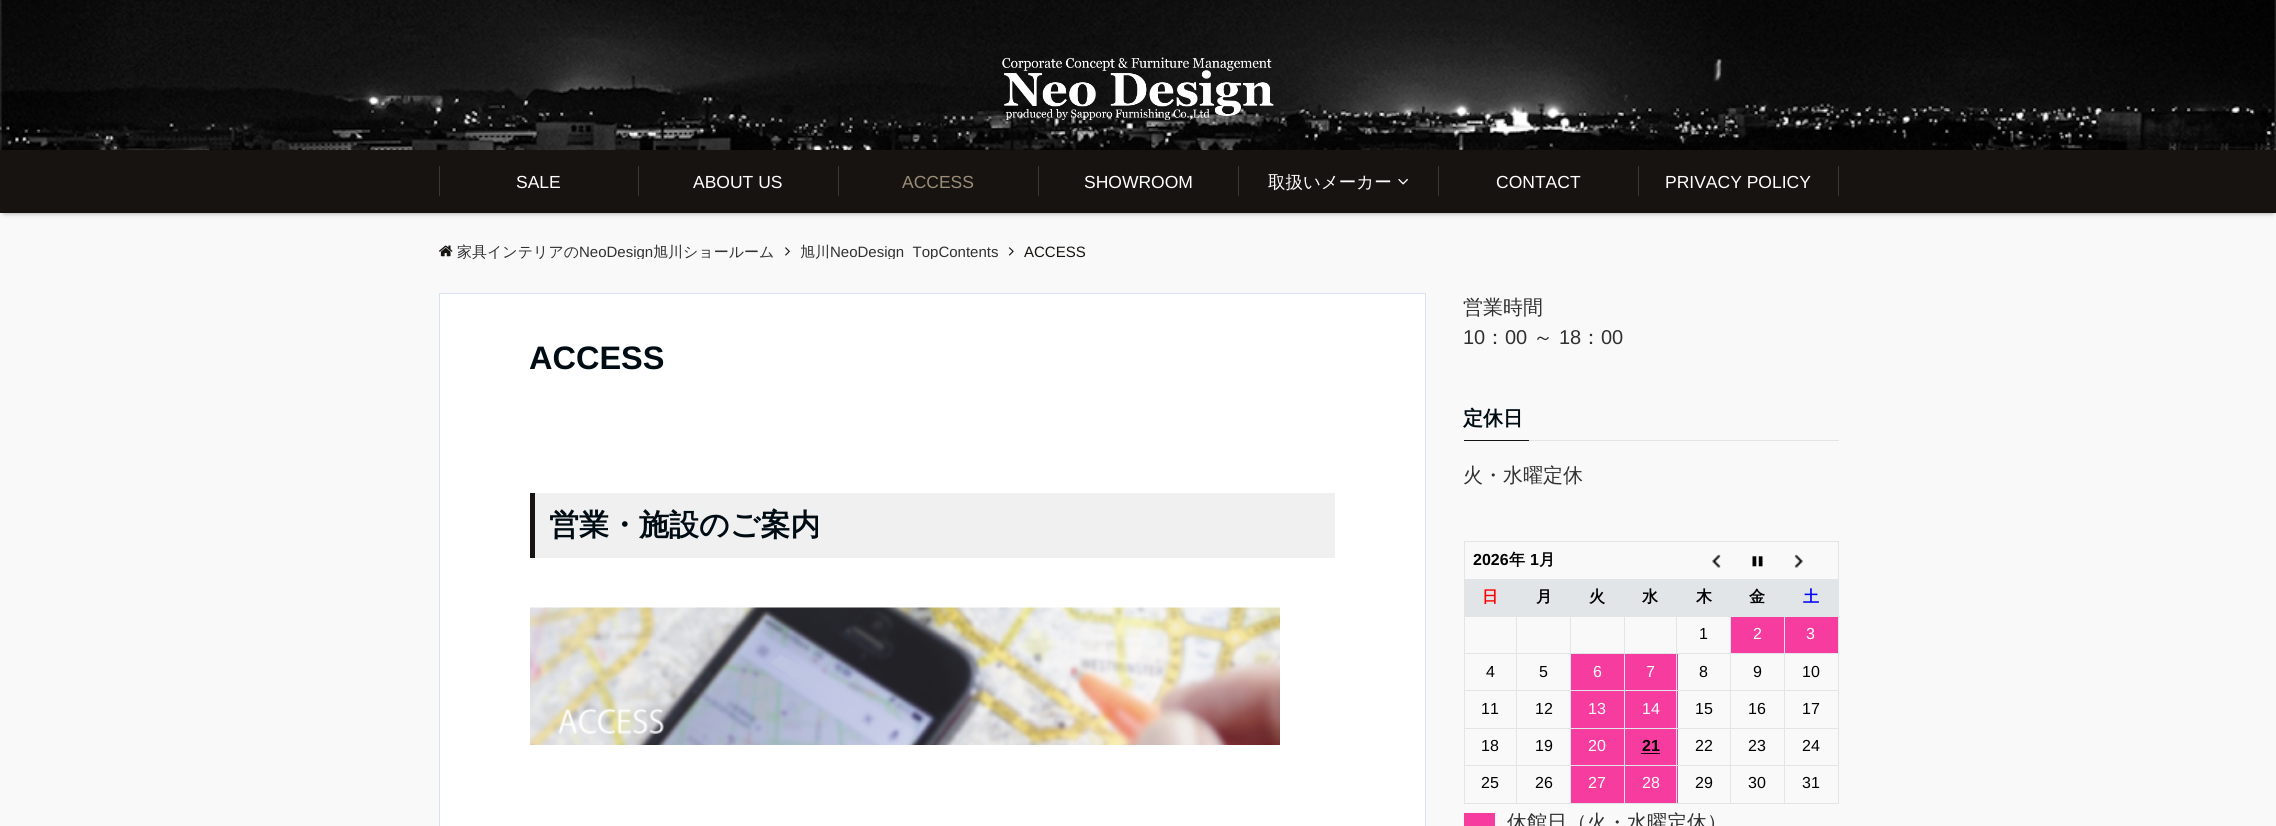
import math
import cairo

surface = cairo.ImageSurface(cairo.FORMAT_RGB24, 2276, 826)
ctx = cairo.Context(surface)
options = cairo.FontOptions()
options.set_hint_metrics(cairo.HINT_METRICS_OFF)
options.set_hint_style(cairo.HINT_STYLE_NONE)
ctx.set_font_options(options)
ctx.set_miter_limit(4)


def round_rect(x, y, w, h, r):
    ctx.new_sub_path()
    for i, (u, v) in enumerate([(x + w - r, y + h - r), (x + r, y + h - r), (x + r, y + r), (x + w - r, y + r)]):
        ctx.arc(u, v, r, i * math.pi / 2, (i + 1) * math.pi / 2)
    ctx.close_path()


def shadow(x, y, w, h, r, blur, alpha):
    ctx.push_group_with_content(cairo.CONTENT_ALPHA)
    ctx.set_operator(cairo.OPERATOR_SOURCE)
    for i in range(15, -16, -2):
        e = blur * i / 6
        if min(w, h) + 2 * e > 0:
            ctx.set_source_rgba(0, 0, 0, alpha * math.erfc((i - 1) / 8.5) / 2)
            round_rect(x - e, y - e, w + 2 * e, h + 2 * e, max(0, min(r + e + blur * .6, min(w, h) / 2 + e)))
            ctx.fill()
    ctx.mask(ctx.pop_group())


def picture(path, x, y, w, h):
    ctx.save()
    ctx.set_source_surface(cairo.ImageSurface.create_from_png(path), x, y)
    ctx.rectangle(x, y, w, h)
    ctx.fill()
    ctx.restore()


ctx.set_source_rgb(0.973, 0.973, 0.973)
ctx.paint()
picture("img1.png", 0, 0, 2276, 150)
picture("img2.png", 1002, 57, 272, 63)
ctx.set_source_rgb(0, 0, 0)
shadow(4, 158, 2269, 55, 0, 2.5, 0.4)
ctx.set_source_rgb(0.086, 0.078, 0.063)
ctx.rectangle(0, 150, 2276, 63)
ctx.fill()
ctx.set_source_rgb(0.243, 0.22, 0.184)
ctx.rectangle(439, 166, 1, 30)
ctx.fill()
ctx.select_font_face("Liberation Sans")
ctx.set_font_size(17.5)
ctx.set_source_rgb(1, 1, 1)
ctx.move_to(516, 188)
ctx.show_text("SALE")
ctx.set_source_rgb(0.243, 0.22, 0.184)
ctx.rectangle(638, 166, 1, 30)
ctx.fill()
ctx.set_source_rgb(1, 1, 1)
ctx.move_to(693, 188)
ctx.show_text("ABOUT US")
ctx.set_source_rgb(0.243, 0.22, 0.184)
ctx.rectangle(838, 166, 1, 30)
ctx.fill()
ctx.set_source_rgb(0.608, 0.553, 0.467)
ctx.move_to(902, 188)
ctx.show_text("ACCESS")
ctx.set_source_rgb(0.243, 0.22, 0.184)
ctx.rectangle(1038, 166, 1, 30)
ctx.fill()
ctx.set_source_rgb(1, 1, 1)
ctx.move_to(1084, 188)
ctx.show_text("SHOWROOM")
ctx.set_source_rgb(0.243, 0.22, 0.184)
ctx.rectangle(1238, 166, 1, 30)
ctx.fill()
ctx.select_font_face("WenQuanYi Zen Hei Medium")
ctx.set_source_rgb(1, 1, 1)
ctx.move_to(1268, 188)
ctx.show_text("取扱いメーカー")
picture("img3.png", 1398, 178, 10, 7)
ctx.set_source_rgb(0.243, 0.22, 0.184)
ctx.rectangle(1438, 166, 1, 30)
ctx.fill()
ctx.select_font_face("Liberation Sans")
ctx.set_source_rgb(1, 1, 1)
ctx.move_to(1496, 188)
ctx.show_text("CONTACT")
ctx.set_source_rgb(0.243, 0.22, 0.184)
ctx.rectangle(1638, 166, 1, 30)
ctx.fill()
ctx.set_source_rgb(1, 1, 1)
ctx.move_to(1665, 188)
ctx.show_text("PRIVACY POLICY")
ctx.set_source_rgb(0.243, 0.22, 0.184)
ctx.rectangle(1838, 166, 1, 30)
ctx.fill()
picture("img4.png", 439, 245, 14, 12)
ctx.select_font_face("WenQuanYi Zen Hei Medium")
ctx.set_font_size(15)
ctx.set_source_rgb(0.188, 0.188, 0.188)
ctx.move_to(457, 257)
ctx.show_text("家具インテリアの")
ctx.save()
ctx.rectangle(439, 244, 361, 15)
ctx.clip()
ctx.select_font_face("Liberation Sans")
ctx.move_to(579, 257)
ctx.show_text("NeoDesign")
ctx.restore()
ctx.move_to(653, 257)
ctx.show_text("旭川ショールーム")
picture("img5.png", 785, 247, 5, 9)
ctx.move_to(800, 257)
ctx.show_text("旭川")
ctx.save()
ctx.rectangle(800, 244, 224, 15)
ctx.clip()
ctx.select_font_face("Liberation Sans")
ctx.move_to(830, 257)
ctx.show_text("NeoDesign_TopContents")
ctx.restore()
picture("img6.png", 1008, 247, 6, 9)
ctx.select_font_face("Liberation Sans")
ctx.set_source_rgb(0.086, 0.078, 0.063)
ctx.move_to(1024, 257)
ctx.show_text("ACCESS")
ctx.set_source_rgb(1, 1, 1)
ctx.rectangle(439.5, 293.5, 986, 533)
ctx.fill_preserve()
ctx.set_source_rgb(0.851, 0.886, 0.941)
ctx.set_line_width(1)
ctx.stroke()
ctx.select_font_face("Liberation Sans", cairo.FONT_SLANT_NORMAL, cairo.FONT_WEIGHT_BOLD)
ctx.set_font_size(32.5)
ctx.set_source_rgb(0, 0.047, 0.082)
ctx.move_to(529, 369)
ctx.show_text("ACCESS")
ctx.set_source_rgb(0.941, 0.941, 0.941)
ctx.rectangle(535, 493, 800, 65)
ctx.fill()
ctx.set_source_rgb(0.086, 0.078, 0.063)
ctx.rectangle(530, 493, 5, 65)
ctx.fill()
ctx.select_font_face("WenQuanYi Zen Hei", cairo.FONT_SLANT_NORMAL, cairo.FONT_WEIGHT_BOLD)
ctx.set_font_size(30)
ctx.set_source_rgb(0, 0.047, 0.082)
ctx.move_to(549, 535)
ctx.show_text("営業・施設のご案内")
picture("img7.png", 530, 607, 750, 138)
ctx.select_font_face("WenQuanYi Zen Hei Medium")
ctx.set_font_size(20)
ctx.set_source_rgb(0.188, 0.188, 0.188)
ctx.move_to(1463, 314)
ctx.show_text("営業時間")
ctx.select_font_face("Liberation Sans")
ctx.move_to(1463, 344)
ctx.show_text("10")
ctx.select_font_face("WenQuanYi Zen Hei Medium")
ctx.move_to(1485, 344)
ctx.show_text("：")
ctx.select_font_face("Liberation Sans")
ctx.move_to(1505, 344)
ctx.show_text("00")
ctx.select_font_face("WenQuanYi Zen Hei Medium")
ctx.move_to(1533, 344)
ctx.show_text("～")
ctx.select_font_face("Liberation Sans")
ctx.move_to(1559, 344)
ctx.show_text("18")
ctx.select_font_face("WenQuanYi Zen Hei Medium")
ctx.move_to(1581, 344)
ctx.show_text("：")
ctx.select_font_face("Liberation Sans")
ctx.move_to(1601, 344)
ctx.show_text("00")
ctx.set_source_rgb(0.886, 0.898, 0.91)
ctx.rectangle(1529, 440, 310, 1)
ctx.fill()
ctx.set_source_rgb(0.086, 0.078, 0.063)
ctx.rectangle(1464, 440, 65, 1)
ctx.fill()
ctx.select_font_face("WenQuanYi Zen Hei", cairo.FONT_SLANT_NORMAL, cairo.FONT_WEIGHT_BOLD)
ctx.set_source_rgb(0, 0.047, 0.082)
ctx.move_to(1463, 425)
ctx.show_text("定休日")
ctx.select_font_face("WenQuanYi Zen Hei Medium")
ctx.set_source_rgb(0.188, 0.188, 0.188)
ctx.move_to(1463, 482)
ctx.show_text("火・水曜定休")
ctx.set_source_rgb(0.886, 0.898, 0.91)
ctx.rectangle(1464, 541, 375, 1)
ctx.fill()
ctx.rectangle(1838, 541, 1, 263)
ctx.fill()
ctx.rectangle(1464, 803, 375, 1)
ctx.fill()
ctx.rectangle(1464, 541, 1, 263)
ctx.fill()
ctx.select_font_face("Liberation Sans", cairo.FONT_SLANT_NORMAL, cairo.FONT_WEIGHT_BOLD)
ctx.set_font_size(16)
ctx.set_source_rgb(0, 0, 0)
ctx.move_to(1473, 565)
ctx.show_text("2026")
ctx.select_font_face("WenQuanYi Zen Hei", cairo.FONT_SLANT_NORMAL, cairo.FONT_WEIGHT_BOLD)
ctx.move_to(1509, 565)
ctx.show_text("年")
ctx.select_font_face("Liberation Sans", cairo.FONT_SLANT_NORMAL, cairo.FONT_WEIGHT_BOLD)
ctx.move_to(1530, 565)
ctx.show_text("1")
ctx.select_font_face("WenQuanYi Zen Hei", cairo.FONT_SLANT_NORMAL, cairo.FONT_WEIGHT_BOLD)
ctx.move_to(1539, 565)
ctx.show_text("月")
picture("img8.png", 1712, 554, 9, 14)
picture("img9.png", 1752, 556, 11, 11)
picture("img10.png", 1794, 554, 9, 14)
ctx.set_source_rgb(0.886, 0.898, 0.91)
ctx.rectangle(1465, 579, 373, 37)
ctx.fill()
ctx.set_source_rgb(1, 0, 0)
ctx.move_to(1482, 602)
ctx.show_text("日")
ctx.set_source_rgb(0, 0, 0)
ctx.move_to(1536, 602)
ctx.show_text("月")
ctx.move_to(1589, 602)
ctx.show_text("火")
ctx.move_to(1642, 602)
ctx.show_text("水")
ctx.move_to(1696, 602)
ctx.show_text("木")
ctx.move_to(1749, 602)
ctx.show_text("金")
ctx.set_source_rgb(0, 0, 1)
ctx.move_to(1803, 602)
ctx.show_text("土")
ctx.set_source_rgb(0.886, 0.898, 0.91)
ctx.rectangle(1784, 616, 55, 1)
ctx.fill()
ctx.rectangle(1784, 653, 55, 1)
ctx.fill()
ctx.rectangle(1784, 690, 55, 1)
ctx.fill()
ctx.rectangle(1784, 728, 55, 1)
ctx.fill()
ctx.rectangle(1784, 765, 55, 1)
ctx.fill()
ctx.rectangle(1784, 765, 1, 39)
ctx.fill()
ctx.rectangle(1730, 765, 55, 1)
ctx.fill()
ctx.rectangle(1784, 728, 1, 38)
ctx.fill()
ctx.rectangle(1730, 728, 55, 1)
ctx.fill()
ctx.rectangle(1784, 690, 1, 39)
ctx.fill()
ctx.rectangle(1730, 690, 55, 1)
ctx.fill()
ctx.rectangle(1784, 653, 1, 38)
ctx.fill()
ctx.rectangle(1730, 653, 55, 1)
ctx.fill()
ctx.rectangle(1784, 616, 1, 38)
ctx.fill()
ctx.rectangle(1730, 616, 55, 1)
ctx.fill()
ctx.rectangle(1730, 765, 1, 39)
ctx.fill()
ctx.rectangle(1676, 765, 55, 1)
ctx.fill()
ctx.rectangle(1730, 728, 1, 38)
ctx.fill()
ctx.rectangle(1676, 728, 55, 1)
ctx.fill()
ctx.rectangle(1730, 690, 1, 39)
ctx.fill()
ctx.rectangle(1676, 690, 55, 1)
ctx.fill()
ctx.rectangle(1730, 653, 1, 38)
ctx.fill()
ctx.rectangle(1676, 653, 55, 1)
ctx.fill()
ctx.rectangle(1730, 616, 1, 38)
ctx.fill()
ctx.rectangle(1676, 616, 55, 1)
ctx.fill()
ctx.set_source_rgb(0.965, 0.235, 0.624)
ctx.rectangle(1625, 654, 53, 36)
ctx.fill()
ctx.rectangle(1625, 691, 53, 37)
ctx.fill()
ctx.rectangle(1625, 729, 53, 36)
ctx.fill()
ctx.rectangle(1625, 766, 53, 37)
ctx.fill()
ctx.set_source_rgb(0.886, 0.898, 0.91)
ctx.rectangle(1676, 765, 1, 39)
ctx.fill()
ctx.rectangle(1624, 765, 54, 1)
ctx.fill()
ctx.rectangle(1676, 728, 1, 38)
ctx.fill()
ctx.rectangle(1624, 728, 54, 1)
ctx.fill()
ctx.rectangle(1676, 690, 1, 39)
ctx.fill()
ctx.rectangle(1624, 690, 54, 1)
ctx.fill()
ctx.rectangle(1676, 653, 1, 38)
ctx.fill()
ctx.rectangle(1624, 653, 54, 1)
ctx.fill()
ctx.rectangle(1676, 616, 1, 38)
ctx.fill()
ctx.rectangle(1624, 616, 54, 1)
ctx.fill()
ctx.rectangle(1624, 765, 1, 39)
ctx.fill()
ctx.rectangle(1570, 765, 55, 1)
ctx.fill()
ctx.rectangle(1624, 728, 1, 38)
ctx.fill()
ctx.rectangle(1570, 728, 55, 1)
ctx.fill()
ctx.rectangle(1624, 690, 1, 39)
ctx.fill()
ctx.rectangle(1570, 690, 55, 1)
ctx.fill()
ctx.rectangle(1624, 653, 1, 38)
ctx.fill()
ctx.rectangle(1570, 653, 55, 1)
ctx.fill()
ctx.rectangle(1624, 616, 1, 38)
ctx.fill()
ctx.rectangle(1570, 616, 55, 1)
ctx.fill()
ctx.rectangle(1570, 765, 1, 39)
ctx.fill()
ctx.rectangle(1516, 765, 55, 1)
ctx.fill()
ctx.rectangle(1570, 728, 1, 38)
ctx.fill()
ctx.rectangle(1516, 728, 55, 1)
ctx.fill()
ctx.rectangle(1570, 690, 1, 39)
ctx.fill()
ctx.rectangle(1516, 690, 55, 1)
ctx.fill()
ctx.rectangle(1570, 653, 1, 38)
ctx.fill()
ctx.rectangle(1516, 653, 55, 1)
ctx.fill()
ctx.rectangle(1570, 616, 1, 38)
ctx.fill()
ctx.rectangle(1516, 616, 55, 1)
ctx.fill()
ctx.rectangle(1516, 765, 1, 39)
ctx.fill()
ctx.rectangle(1464, 765, 54, 1)
ctx.fill()
ctx.rectangle(1516, 728, 1, 38)
ctx.fill()
ctx.rectangle(1464, 728, 54, 1)
ctx.fill()
ctx.rectangle(1516, 690, 1, 39)
ctx.fill()
ctx.rectangle(1464, 690, 54, 1)
ctx.fill()
ctx.rectangle(1516, 653, 1, 38)
ctx.fill()
ctx.rectangle(1464, 653, 54, 1)
ctx.fill()
ctx.rectangle(1516, 616, 1, 38)
ctx.fill()
ctx.rectangle(1464, 616, 54, 1)
ctx.fill()
ctx.select_font_face("Liberation Sans")
ctx.set_source_rgb(0, 0, 0)
ctx.move_to(1699, 639)
ctx.show_text("1")
ctx.set_source_rgb(0.965, 0.235, 0.624)
ctx.rectangle(1731, 617, 53, 36)
ctx.fill()
ctx.set_source_rgb(1, 1, 1)
ctx.move_to(1753, 639)
ctx.show_text("2")
ctx.set_source_rgb(0.965, 0.235, 0.624)
ctx.rectangle(1785, 617, 53, 36)
ctx.fill()
ctx.set_source_rgb(1, 1, 1)
ctx.move_to(1806, 639)
ctx.show_text("3")
ctx.set_source_rgb(0, 0, 0)
ctx.move_to(1486, 677)
ctx.show_text("4")
ctx.move_to(1539, 677)
ctx.show_text("5")
ctx.set_source_rgb(0.965, 0.235, 0.624)
ctx.rectangle(1571, 654, 53, 36)
ctx.fill()
ctx.set_source_rgb(1, 1, 1)
ctx.move_to(1593, 677)
ctx.show_text("6")
ctx.move_to(1646, 677)
ctx.show_text("7")
ctx.set_source_rgb(0, 0, 0)
ctx.move_to(1699, 677)
ctx.show_text("8")
ctx.move_to(1753, 677)
ctx.show_text("9")
ctx.move_to(1802, 677)
ctx.show_text("10")
ctx.move_to(1481, 714)
ctx.show_text("11")
ctx.move_to(1535, 714)
ctx.show_text("12")
ctx.set_source_rgb(0.965, 0.235, 0.624)
ctx.rectangle(1571, 691, 53, 37)
ctx.fill()
ctx.set_source_rgb(1, 1, 1)
ctx.move_to(1588, 714)
ctx.show_text("13")
ctx.move_to(1642, 714)
ctx.show_text("14")
ctx.set_source_rgb(0, 0, 0)
ctx.move_to(1695, 714)
ctx.show_text("15")
ctx.move_to(1748, 714)
ctx.show_text("16")
ctx.move_to(1802, 714)
ctx.show_text("17")
ctx.move_to(1481, 751)
ctx.show_text("18")
ctx.move_to(1535, 751)
ctx.show_text("19")
ctx.set_source_rgb(0.965, 0.235, 0.624)
ctx.rectangle(1571, 729, 53, 36)
ctx.fill()
ctx.set_source_rgb(1, 1, 1)
ctx.move_to(1588, 751)
ctx.show_text("20")
ctx.select_font_face("Liberation Sans", cairo.FONT_SLANT_NORMAL, cairo.FONT_WEIGHT_BOLD)
ctx.set_source_rgb(0, 0, 0)
ctx.move_to(1642, 751)
ctx.show_text("21")
ctx.rectangle(1641, 753, 19, 1)
ctx.fill()
ctx.select_font_face("Liberation Sans")
ctx.move_to(1695, 751)
ctx.show_text("22")
ctx.move_to(1748, 751)
ctx.show_text("23")
ctx.move_to(1802, 751)
ctx.show_text("24")
ctx.move_to(1481, 788)
ctx.show_text("25")
ctx.move_to(1535, 788)
ctx.show_text("26")
ctx.set_source_rgb(0.965, 0.235, 0.624)
ctx.rectangle(1571, 766, 53, 37)
ctx.fill()
ctx.set_source_rgb(1, 1, 1)
ctx.move_to(1588, 788)
ctx.show_text("27")
ctx.move_to(1642, 788)
ctx.show_text("28")
ctx.set_source_rgb(0, 0, 0)
ctx.move_to(1695, 788)
ctx.show_text("29")
ctx.move_to(1748, 788)
ctx.show_text("30")
ctx.move_to(1802, 788)
ctx.show_text("31")
ctx.set_source_rgb(0.965, 0.235, 0.624)
ctx.rectangle(1464, 813, 31, 13)
ctx.fill()
ctx.select_font_face("WenQuanYi Zen Hei Medium")
ctx.set_font_size(20)
ctx.set_source_rgb(0.188, 0.188, 0.188)
ctx.move_to(1507, 829)
ctx.show_text("休館日（火・水曜定休）")
surface.write_to_png("page.png")
